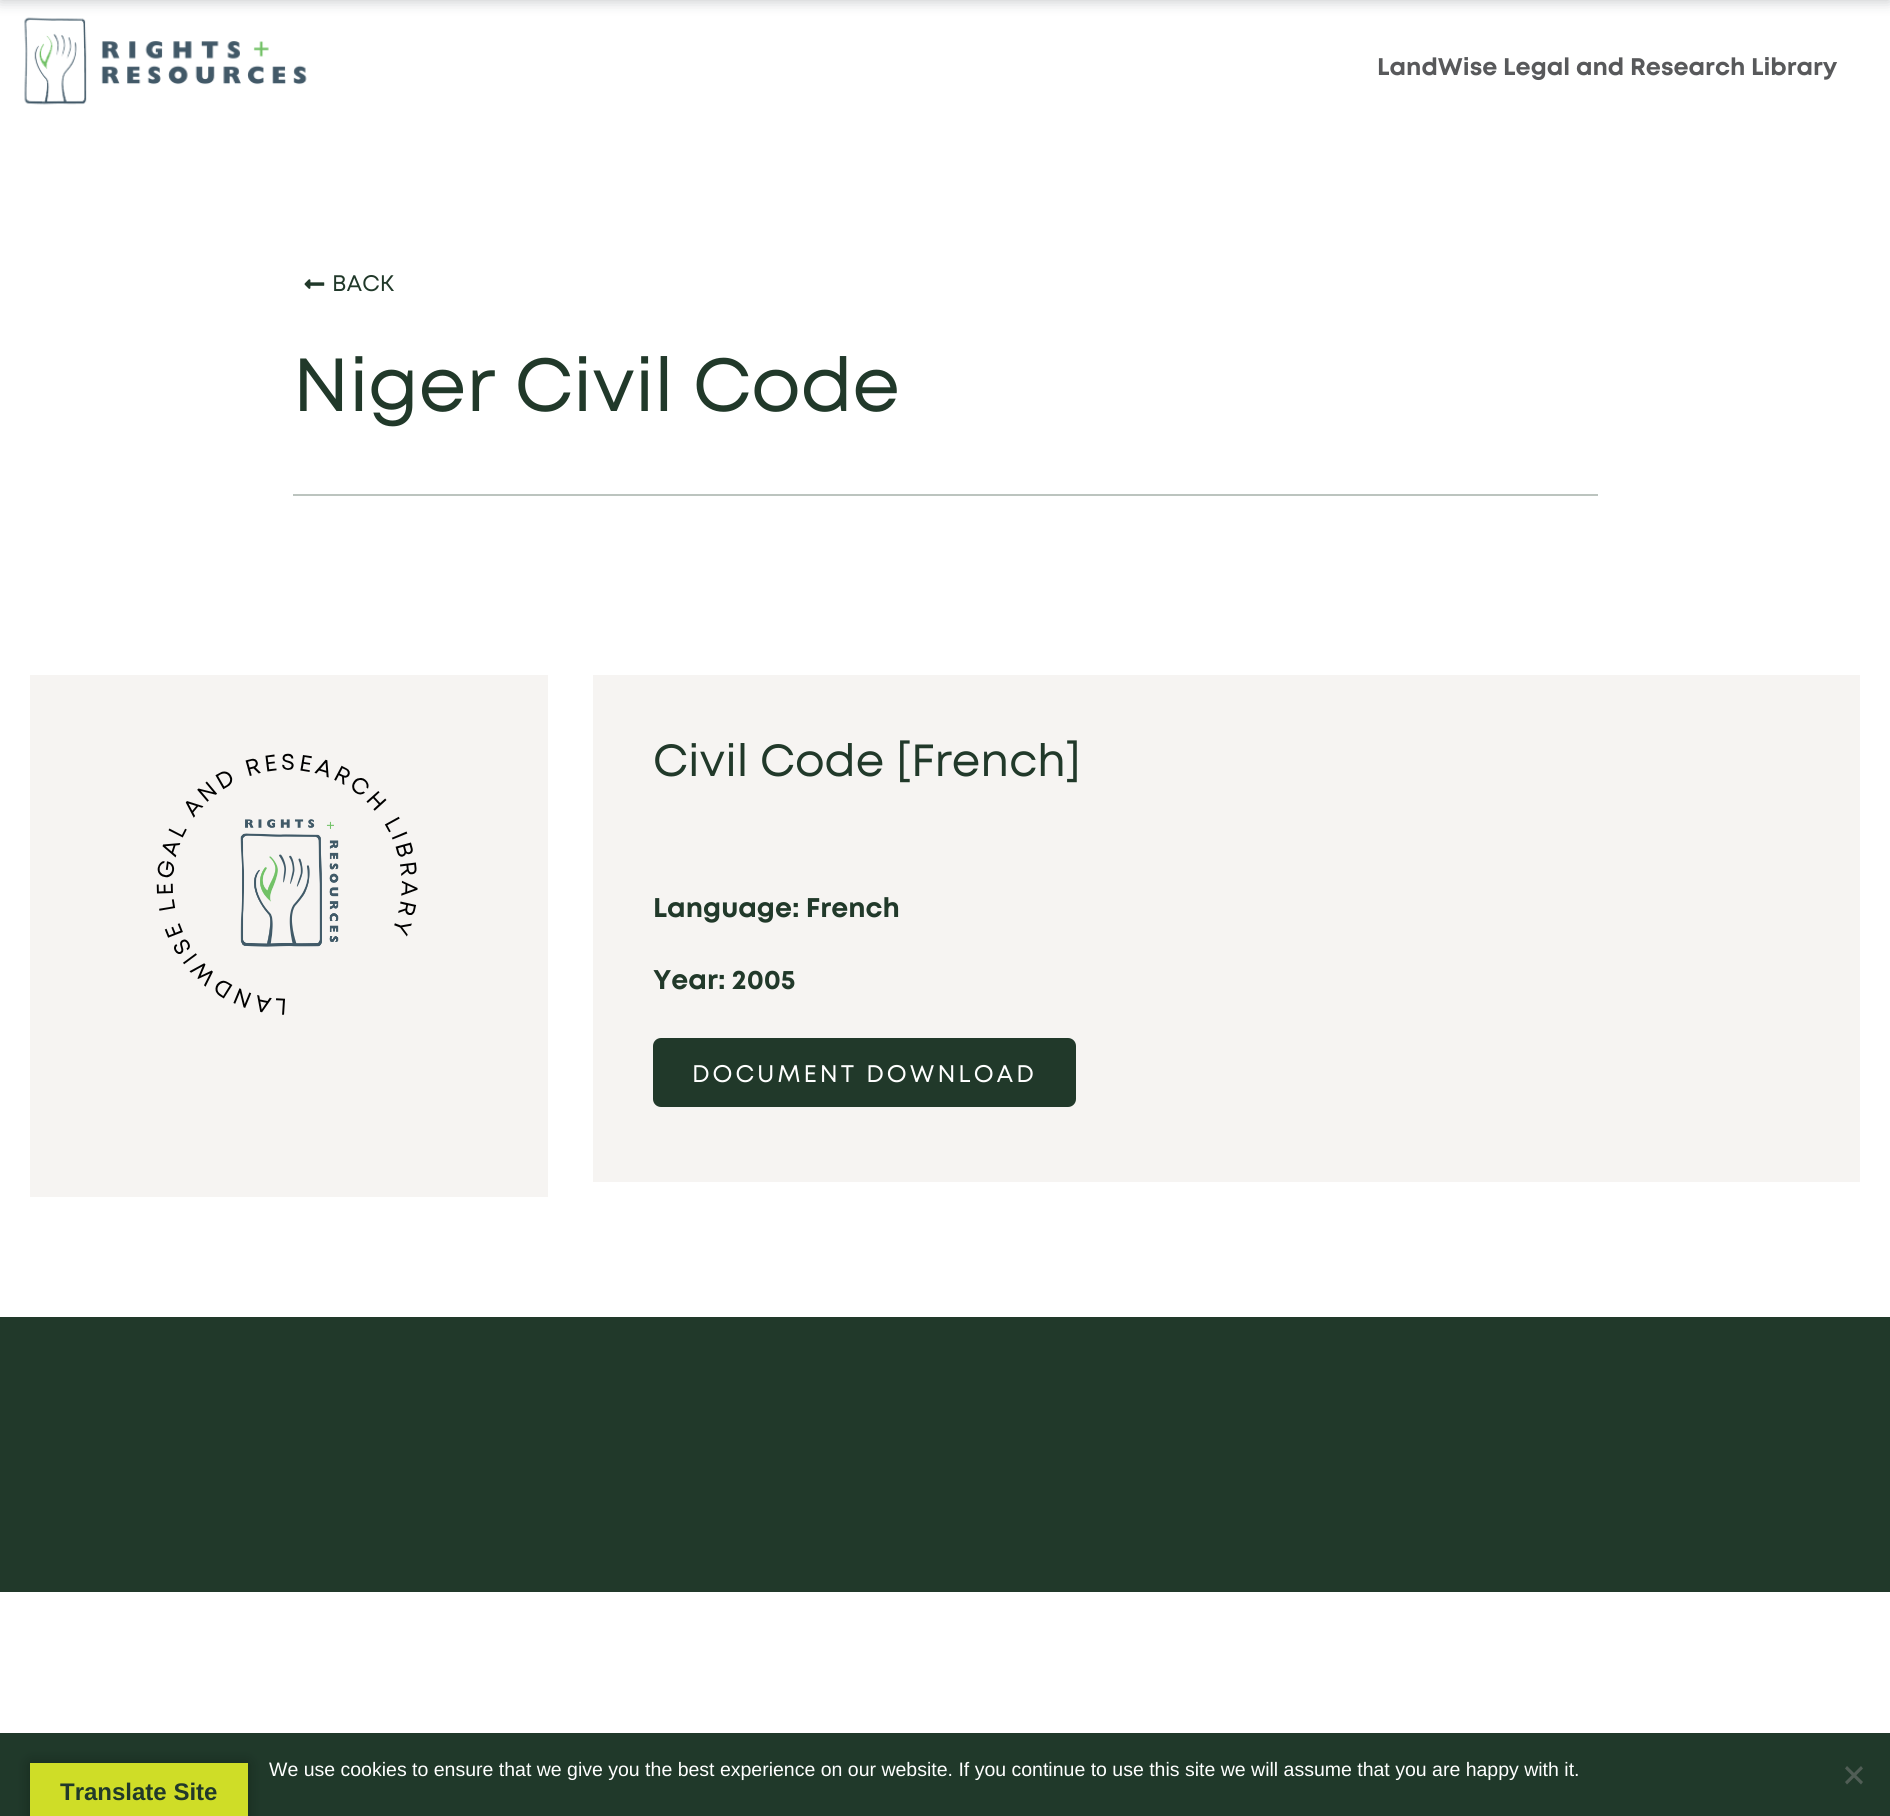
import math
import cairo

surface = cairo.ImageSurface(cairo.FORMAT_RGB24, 1890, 1816)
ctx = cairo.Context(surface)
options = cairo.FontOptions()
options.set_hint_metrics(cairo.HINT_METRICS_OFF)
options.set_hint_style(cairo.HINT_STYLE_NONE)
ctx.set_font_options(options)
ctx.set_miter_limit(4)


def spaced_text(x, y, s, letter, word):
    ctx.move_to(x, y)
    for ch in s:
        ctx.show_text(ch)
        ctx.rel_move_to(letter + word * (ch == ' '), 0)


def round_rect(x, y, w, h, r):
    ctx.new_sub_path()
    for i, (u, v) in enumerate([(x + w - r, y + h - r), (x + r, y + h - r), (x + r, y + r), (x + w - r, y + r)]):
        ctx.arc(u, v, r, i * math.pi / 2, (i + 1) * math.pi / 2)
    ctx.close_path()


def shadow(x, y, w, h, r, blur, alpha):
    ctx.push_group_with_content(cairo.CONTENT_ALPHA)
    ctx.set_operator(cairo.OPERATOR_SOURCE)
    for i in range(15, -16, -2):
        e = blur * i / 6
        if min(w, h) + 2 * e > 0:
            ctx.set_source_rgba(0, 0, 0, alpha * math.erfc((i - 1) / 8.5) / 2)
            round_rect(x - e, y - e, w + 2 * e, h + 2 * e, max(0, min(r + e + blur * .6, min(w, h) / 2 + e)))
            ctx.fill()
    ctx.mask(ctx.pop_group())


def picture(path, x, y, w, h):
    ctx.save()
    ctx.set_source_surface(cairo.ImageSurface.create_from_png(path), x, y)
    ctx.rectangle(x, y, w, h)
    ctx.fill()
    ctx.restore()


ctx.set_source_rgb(1, 1, 1)
ctx.paint()
picture("img1.png", 24, 17, 283, 88)
ctx.set_source_rgb(0.082, 0.106, 0.149)
shadow(0, -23, 1890, 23, 0, 7.5, 0.28)
ctx.select_font_face("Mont", cairo.FONT_SLANT_NORMAL, cairo.FONT_WEIGHT_BOLD)
ctx.set_font_size(24)
ctx.set_source_rgb(0.345, 0.349, 0.357)
ctx.move_to(1377, 75)
ctx.show_text("LandWise Legal and Research Library")
picture("img2.png", 304, 279, 21, 10)
ctx.select_font_face("Mont")
ctx.set_font_size(22.5)
ctx.set_source_rgb(0.129, 0.224, 0.165)
ctx.move_to(332, 291)
ctx.show_text("BACK")
ctx.set_font_size(75)
ctx.move_to(293, 411)
ctx.show_text("Niger Civil Code")
ctx.set_source_rgb(0.737, 0.769, 0.749)
ctx.rectangle(293, 494, 1305, 2)
ctx.fill()
ctx.set_source_rgb(0.961, 0.957, 0.949)
ctx.rectangle(30, 675, 518, 522)
ctx.fill()
picture("img3.png", 156, 753, 262, 262)
picture("img4.png", 240, 819, 99, 128)
ctx.rectangle(593, 675, 1267, 507)
ctx.fill()
ctx.set_font_size(45)
ctx.set_source_rgb(0.129, 0.224, 0.165)
ctx.move_to(653, 776)
ctx.show_text("Civil Code [French]")
ctx.select_font_face("Mont", cairo.FONT_SLANT_NORMAL, cairo.FONT_WEIGHT_BOLD)
ctx.set_font_size(27)
ctx.move_to(653, 917)
ctx.show_text("Language: French")
ctx.move_to(653, 989)
ctx.show_text("Year: 2005")
round_rect(654, 1039, 421, 67, 7)
ctx.fill_preserve()
ctx.stroke()
ctx.select_font_face("Mont")
ctx.set_font_size(24)
ctx.set_source_rgb(1, 1, 1)
spaced_text(692, 1082, "DOCUMENT DOWNLOAD", 3, 0)
ctx.set_source_rgb(0.129, 0.224, 0.165)
ctx.rectangle(0, 1317, 1890, 275)
ctx.fill()
ctx.set_source_rgb(0.125, 0.224, 0.165)
ctx.rectangle(0, 1733, 1890, 83)
ctx.fill()
ctx.select_font_face("Liberation Sans")
ctx.set_font_size(19.5)
ctx.set_source_rgb(1, 1, 1)
ctx.move_to(269, 1776)
ctx.show_text("We use cookies to ensure that we give you the best experience on our website. If you continue to use this site we will assume that you are happy with it.")
ctx.set_source_rgb(0.314, 0.365, 0.333)
ctx.new_path()
ctx.move_to(1861, 1766)
ctx.line_to(1863, 1768.5)
ctx.line_to(1847, 1784.5)
ctx.line_to(1845, 1782)
ctx.close_path()
ctx.fill()
ctx.new_path()
ctx.move_to(1845, 1768.5)
ctx.line_to(1847, 1766)
ctx.line_to(1863, 1782)
ctx.line_to(1861, 1784.5)
ctx.close_path()
ctx.fill()
ctx.set_source_rgb(0, 0, 0)
shadow(30, 1763, 218, 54, 0, 7, 0.3)
ctx.set_source_rgb(0.812, 0.867, 0.153)
ctx.rectangle(30, 1763, 218, 53)
ctx.fill()
ctx.select_font_face("Liberation Sans", cairo.FONT_SLANT_NORMAL, cairo.FONT_WEIGHT_BOLD)
ctx.set_font_size(24)
ctx.set_source_rgb(0.129, 0.224, 0.165)
ctx.move_to(60, 1800)
ctx.show_text("Translate Site")
surface.write_to_png("page.png")
